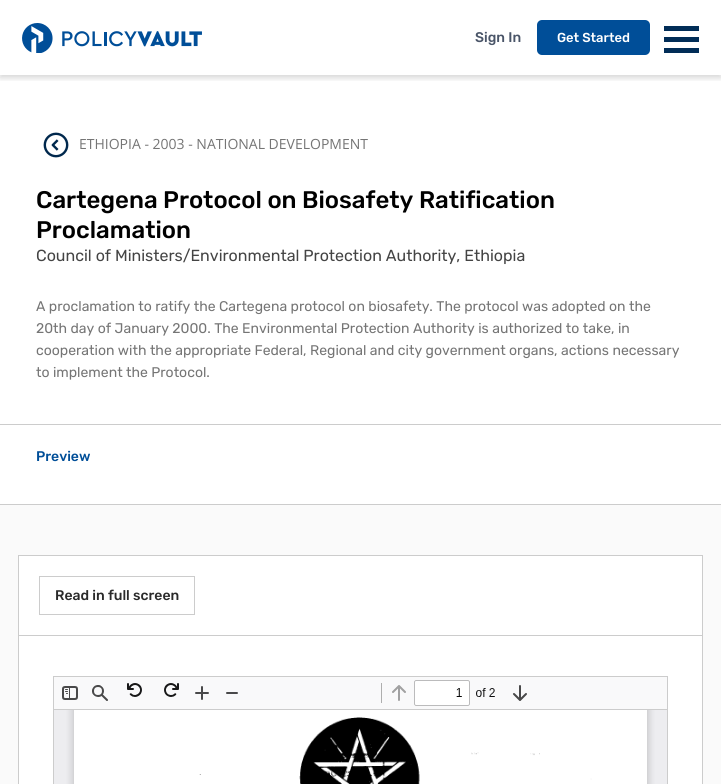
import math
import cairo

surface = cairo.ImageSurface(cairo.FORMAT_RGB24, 721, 784)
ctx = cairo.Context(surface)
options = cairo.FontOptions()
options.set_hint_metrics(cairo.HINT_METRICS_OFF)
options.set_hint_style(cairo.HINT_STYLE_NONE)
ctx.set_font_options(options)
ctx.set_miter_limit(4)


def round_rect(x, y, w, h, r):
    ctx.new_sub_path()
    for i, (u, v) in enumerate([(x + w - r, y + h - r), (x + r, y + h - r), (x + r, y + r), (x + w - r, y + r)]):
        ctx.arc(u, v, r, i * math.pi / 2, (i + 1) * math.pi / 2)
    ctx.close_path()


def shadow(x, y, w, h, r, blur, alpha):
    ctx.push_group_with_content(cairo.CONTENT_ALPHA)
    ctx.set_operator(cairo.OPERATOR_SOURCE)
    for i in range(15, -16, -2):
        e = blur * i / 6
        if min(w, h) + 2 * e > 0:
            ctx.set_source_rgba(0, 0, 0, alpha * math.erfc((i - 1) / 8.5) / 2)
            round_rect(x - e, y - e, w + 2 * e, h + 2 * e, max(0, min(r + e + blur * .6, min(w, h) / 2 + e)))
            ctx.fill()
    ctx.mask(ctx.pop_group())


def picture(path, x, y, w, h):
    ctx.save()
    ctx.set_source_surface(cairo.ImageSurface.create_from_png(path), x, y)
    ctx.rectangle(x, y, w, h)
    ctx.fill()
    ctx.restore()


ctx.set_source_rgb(1, 1, 1)
ctx.paint()
ctx.save()
ctx.rectangle(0, 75, 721, 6)
ctx.clip()
ctx.set_source_rgb(0, 0, 0)
shadow(0, 3, 721, 75, 0, 3, 0.16)
ctx.restore()
picture("img1.png", 22, 23, 180, 30)
ctx.select_font_face("Rubik Medium")
ctx.set_font_size(14)
ctx.set_source_rgb(0.29, 0.333, 0.408)
ctx.move_to(475, 42)
ctx.show_text("Sign In")
ctx.set_source_rgb(0, 0.306, 0.596)
round_rect(537, 20, 113, 35, 5)
ctx.fill()
ctx.set_font_size(13)
ctx.set_source_rgb(1, 1, 1)
ctx.move_to(557, 42)
ctx.show_text("Get Started")
ctx.set_source_rgb(0.004, 0.176, 0.341)
ctx.rectangle(664, 26, 35, 5)
ctx.fill()
ctx.rectangle(664, 37, 35, 5)
ctx.fill()
ctx.rectangle(664, 48, 35, 5)
ctx.fill()
ctx.set_source_rgb(0.98, 0.98, 0.98)
ctx.rectangle(0, 505, 721, 279)
ctx.fill()
ctx.set_source_rgb(0.8, 0.8, 0.8)
ctx.rectangle(0, 424, 721, 1)
ctx.fill()
picture("img2.png", 43, 132, 26, 26)
ctx.select_font_face("Open Sans")
ctx.set_font_size(14)
ctx.set_source_rgb(0.459, 0.459, 0.459)
ctx.move_to(79, 149)
ctx.show_text("ETHIOPIA - 2003 - NATIONAL DEVELOPMENT")
ctx.select_font_face("Rubik Medium")
ctx.set_font_size(24)
ctx.set_source_rgb(0, 0, 0)
ctx.move_to(36, 208)
ctx.show_text("Cartegena Protocol on Biosafety Ratification")
ctx.move_to(36, 238)
ctx.show_text("Proclamation")
ctx.select_font_face("Rubik")
ctx.set_font_size(16)
ctx.set_source_rgb(0.267, 0.267, 0.267)
ctx.move_to(36, 261)
ctx.show_text("Council of Ministers/Environmental Protection Authority, Ethiopia")
ctx.set_font_size(14)
ctx.set_source_rgb(0.459, 0.459, 0.459)
ctx.move_to(36, 311)
ctx.show_text("A proclamation to ratify the Cartegena protocol on biosafety. The protocol was adopted on the")
ctx.move_to(36, 333)
ctx.show_text("20th day of January 2000. The Environmental Protection Authority is authorized to take, in")
ctx.move_to(36, 355)
ctx.show_text("cooperation with the appropriate Federal, Regional and city government organs, actions necessary")
ctx.move_to(36, 377)
ctx.show_text("to implement the Protocol.")
ctx.set_source_rgb(0.8, 0.8, 0.8)
ctx.rectangle(0, 504, 721, 1)
ctx.fill()
ctx.select_font_face("Rubik Medium")
ctx.set_source_rgb(0, 0.306, 0.596)
ctx.move_to(36, 461)
ctx.show_text("Preview")
ctx.set_source_rgb(1, 1, 1)
ctx.rectangle(18.5, 555.5, 684, 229)
ctx.fill_preserve()
ctx.set_source_rgb(0.8, 0.8, 0.8)
ctx.set_line_width(1)
ctx.stroke()
ctx.rectangle(19, 635, 683, 1)
ctx.fill()
ctx.rectangle(39.5, 576.5, 155, 38)
ctx.stroke()
ctx.set_source_rgb(0.165, 0.165, 0.165)
ctx.move_to(55, 600)
ctx.show_text("Read in full screen")
ctx.rectangle(53.5, 676.5, 614, 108)
ctx.set_source_rgb(0.8, 0.8, 0.8)
ctx.stroke()
picture("img3.png", 54, 677, 613, 107)
surface.write_to_png("page.png")
